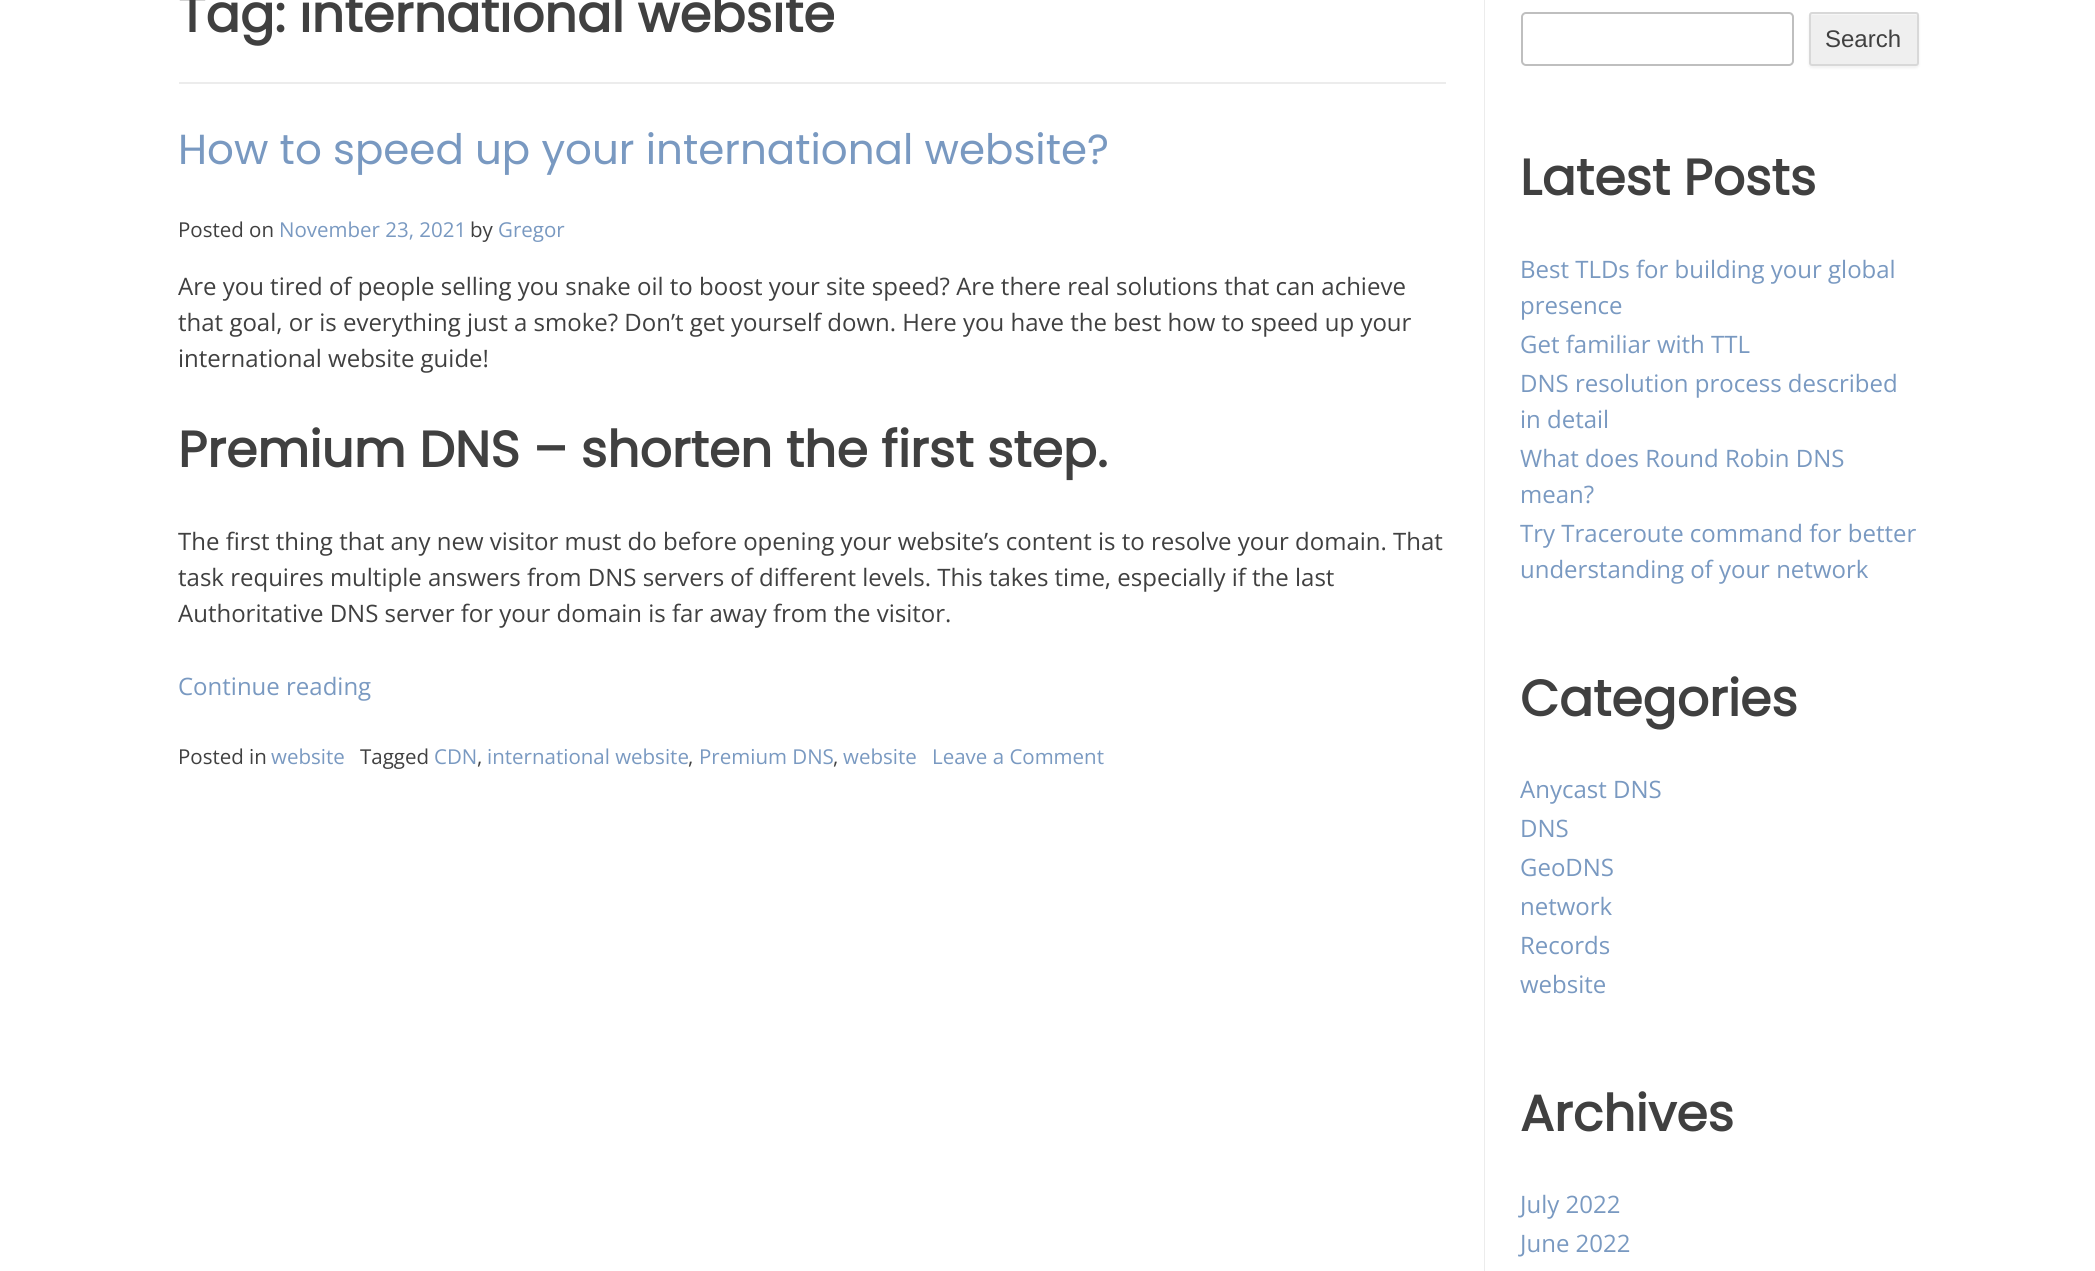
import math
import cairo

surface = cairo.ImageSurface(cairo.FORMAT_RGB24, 2095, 1271)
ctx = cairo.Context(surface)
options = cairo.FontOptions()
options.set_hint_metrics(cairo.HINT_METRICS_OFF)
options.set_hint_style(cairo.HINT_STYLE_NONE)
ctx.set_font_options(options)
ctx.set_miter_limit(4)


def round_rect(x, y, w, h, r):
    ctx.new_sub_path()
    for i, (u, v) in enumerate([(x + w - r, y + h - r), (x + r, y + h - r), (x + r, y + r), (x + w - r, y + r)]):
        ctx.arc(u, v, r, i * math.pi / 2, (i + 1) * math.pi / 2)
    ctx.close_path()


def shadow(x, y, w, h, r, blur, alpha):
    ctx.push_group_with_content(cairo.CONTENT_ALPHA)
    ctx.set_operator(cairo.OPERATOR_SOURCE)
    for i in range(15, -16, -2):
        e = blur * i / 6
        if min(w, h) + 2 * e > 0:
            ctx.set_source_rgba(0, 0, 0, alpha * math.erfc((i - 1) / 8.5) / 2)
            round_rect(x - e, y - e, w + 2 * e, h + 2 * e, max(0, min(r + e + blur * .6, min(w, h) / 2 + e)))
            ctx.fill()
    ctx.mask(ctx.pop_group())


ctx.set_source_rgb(1, 1, 1)
ctx.paint()
ctx.set_source_rgb(0.922, 0.922, 0.922)
ctx.new_path()
ctx.move_to(180, 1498)
ctx.line_to(180, 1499)
ctx.line_to(1485, 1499)
ctx.line_to(1485, -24)
ctx.line_to(1484, -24)
ctx.line_to(1484, 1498)
ctx.close_path()
ctx.fill()
ctx.rectangle(179, 82, 1267, 2)
ctx.fill()
ctx.select_font_face("Poppins", cairo.FONT_SLANT_NORMAL, cairo.FONT_WEIGHT_BOLD)
ctx.set_font_size(51)
ctx.set_source_rgb(0.251, 0.251, 0.251)
ctx.move_to(178, 32)
ctx.show_text("Tag: international website")
ctx.select_font_face("Poppins")
ctx.set_font_size(42)
ctx.set_source_rgb(0.475, 0.6, 0.757)
ctx.move_to(178, 164)
ctx.show_text("How to speed up your international website?")
ctx.select_font_face("Open Sans")
ctx.set_font_size(20.5)
ctx.set_source_rgb(0.251, 0.251, 0.251)
ctx.move_to(178, 237)
ctx.show_text("Posted on")
ctx.set_source_rgb(0.475, 0.6, 0.757)
ctx.move_to(279, 237)
ctx.show_text("November 23, 2021")
ctx.set_source_rgb(0.251, 0.251, 0.251)
ctx.move_to(470, 237)
ctx.show_text("by")
ctx.set_source_rgb(0.475, 0.6, 0.757)
ctx.move_to(498, 237)
ctx.show_text("Gregor")
ctx.set_font_size(24)
ctx.set_source_rgb(0.251, 0.251, 0.251)
ctx.move_to(178, 295)
ctx.show_text("Are you tired of people selling you snake oil to boost your site speed? Are there real solutions that can achieve")
ctx.move_to(178, 331)
ctx.show_text("that goal, or is everything just a smoke? Don’t get yourself down. Here you have the best how to speed up your")
ctx.move_to(178, 367)
ctx.show_text("international website guide!")
ctx.select_font_face("Poppins", cairo.FONT_SLANT_NORMAL, cairo.FONT_WEIGHT_BOLD)
ctx.set_font_size(50.4)
ctx.move_to(178, 467)
ctx.show_text("Premium DNS – shorten the first step.")
ctx.select_font_face("Open Sans")
ctx.set_font_size(24)
ctx.move_to(178, 550)
ctx.show_text("The first thing that any new visitor must do before opening your website’s content is to resolve your domain. That")
ctx.move_to(178, 586)
ctx.show_text("task requires multiple answers from DNS servers of different levels. This takes time, especially if the last")
ctx.move_to(178, 622)
ctx.show_text("Authoritative DNS server for your domain is far away from the visitor.")
ctx.set_source_rgb(0.475, 0.6, 0.757)
ctx.move_to(178, 695)
ctx.show_text("Continue reading")
ctx.set_font_size(20.5)
ctx.set_source_rgb(0.251, 0.251, 0.251)
ctx.move_to(178, 764)
ctx.show_text("Posted in")
ctx.set_source_rgb(0.475, 0.6, 0.757)
ctx.move_to(271, 764)
ctx.show_text("website")
ctx.set_source_rgb(0.251, 0.251, 0.251)
ctx.move_to(360, 764)
ctx.show_text("Tagged")
ctx.set_source_rgb(0.475, 0.6, 0.757)
ctx.move_to(434, 764)
ctx.show_text("CDN")
ctx.set_source_rgb(0.251, 0.251, 0.251)
ctx.move_to(477, 764)
ctx.show_text(",")
ctx.set_source_rgb(0.475, 0.6, 0.757)
ctx.move_to(487, 764)
ctx.show_text("international website")
ctx.set_source_rgb(0.251, 0.251, 0.251)
ctx.move_to(688, 764)
ctx.show_text(",")
ctx.set_source_rgb(0.475, 0.6, 0.757)
ctx.move_to(699, 764)
ctx.show_text("Premium DNS")
ctx.set_source_rgb(0.251, 0.251, 0.251)
ctx.move_to(833, 764)
ctx.show_text(",")
ctx.set_source_rgb(0.475, 0.6, 0.757)
ctx.move_to(843, 764)
ctx.show_text("website")
ctx.move_to(932, 764)
ctx.show_text("Leave a Comment")
round_rect(1522, 13, 271, 52, 4)
ctx.set_source_rgb(0.749, 0.749, 0.749)
ctx.stroke()
ctx.set_source_rgb(0, 0, 0)
shadow(1809, 14, 110, 54, 3, 1.5, 0.06)
ctx.set_source_rgb(0.937, 0.937, 0.937)
round_rect(1809, 12, 110, 54, 3)
ctx.fill()
ctx.set_source_rgb(0.961, 0.961, 0.961)
ctx.new_path()
ctx.move_to(1812, 15)
ctx.line_to(1916, 15)
ctx.line_to(1917, 16)
ctx.curve_to(1917, 15, 1917, 14, 1916, 14)
ctx.line_to(1812, 14)
ctx.curve_to(1812, 14, 1811, 15, 1811, 15)
ctx.close_path()
ctx.fill()
round_rect(1810, 13, 108, 52, 2)
ctx.set_source_rgba(0, 0, 0, 0.1)
ctx.stroke()
ctx.select_font_face("Liberation Sans")
ctx.set_font_size(24)
ctx.set_source_rgb(0.251, 0.251, 0.251)
ctx.move_to(1825, 47)
ctx.show_text("Search")
ctx.select_font_face("Poppins", cairo.FONT_SLANT_NORMAL, cairo.FONT_WEIGHT_BOLD)
ctx.set_font_size(50.4)
ctx.move_to(1520, 195)
ctx.show_text("Latest Posts")
ctx.select_font_face("Open Sans")
ctx.set_font_size(24)
ctx.set_source_rgb(0.475, 0.6, 0.757)
ctx.move_to(1520, 278)
ctx.show_text("Best TLDs for building your global")
ctx.move_to(1520, 314)
ctx.show_text("presence")
ctx.move_to(1520, 353)
ctx.show_text("Get familiar with TTL")
ctx.move_to(1520, 392)
ctx.show_text("DNS resolution process described")
ctx.move_to(1520, 428)
ctx.show_text("in detail")
ctx.move_to(1520, 467)
ctx.show_text("What does Round Robin DNS")
ctx.move_to(1520, 503)
ctx.show_text("mean?")
ctx.move_to(1520, 542)
ctx.show_text("Try Traceroute command for better")
ctx.move_to(1520, 578)
ctx.show_text("understanding of your network")
ctx.select_font_face("Poppins", cairo.FONT_SLANT_NORMAL, cairo.FONT_WEIGHT_BOLD)
ctx.set_font_size(50.4)
ctx.set_source_rgb(0.251, 0.251, 0.251)
ctx.move_to(1520, 716)
ctx.show_text("Categories")
ctx.select_font_face("Open Sans")
ctx.set_font_size(24)
ctx.set_source_rgb(0.475, 0.6, 0.757)
ctx.move_to(1520, 798)
ctx.show_text("Anycast DNS")
ctx.move_to(1520, 837)
ctx.show_text("DNS")
ctx.move_to(1520, 876)
ctx.show_text("GeoDNS")
ctx.move_to(1520, 915)
ctx.show_text("network")
ctx.move_to(1520, 954)
ctx.show_text("Records")
ctx.move_to(1520, 993)
ctx.show_text("website")
ctx.select_font_face("Poppins", cairo.FONT_SLANT_NORMAL, cairo.FONT_WEIGHT_BOLD)
ctx.set_font_size(50.4)
ctx.set_source_rgb(0.251, 0.251, 0.251)
ctx.move_to(1520, 1131)
ctx.show_text("Archives")
ctx.select_font_face("Open Sans")
ctx.set_font_size(24)
ctx.set_source_rgb(0.475, 0.6, 0.757)
ctx.move_to(1520, 1213)
ctx.show_text("July 2022")
ctx.move_to(1520, 1252)
ctx.show_text("June 2022")
surface.write_to_png("page.png")
